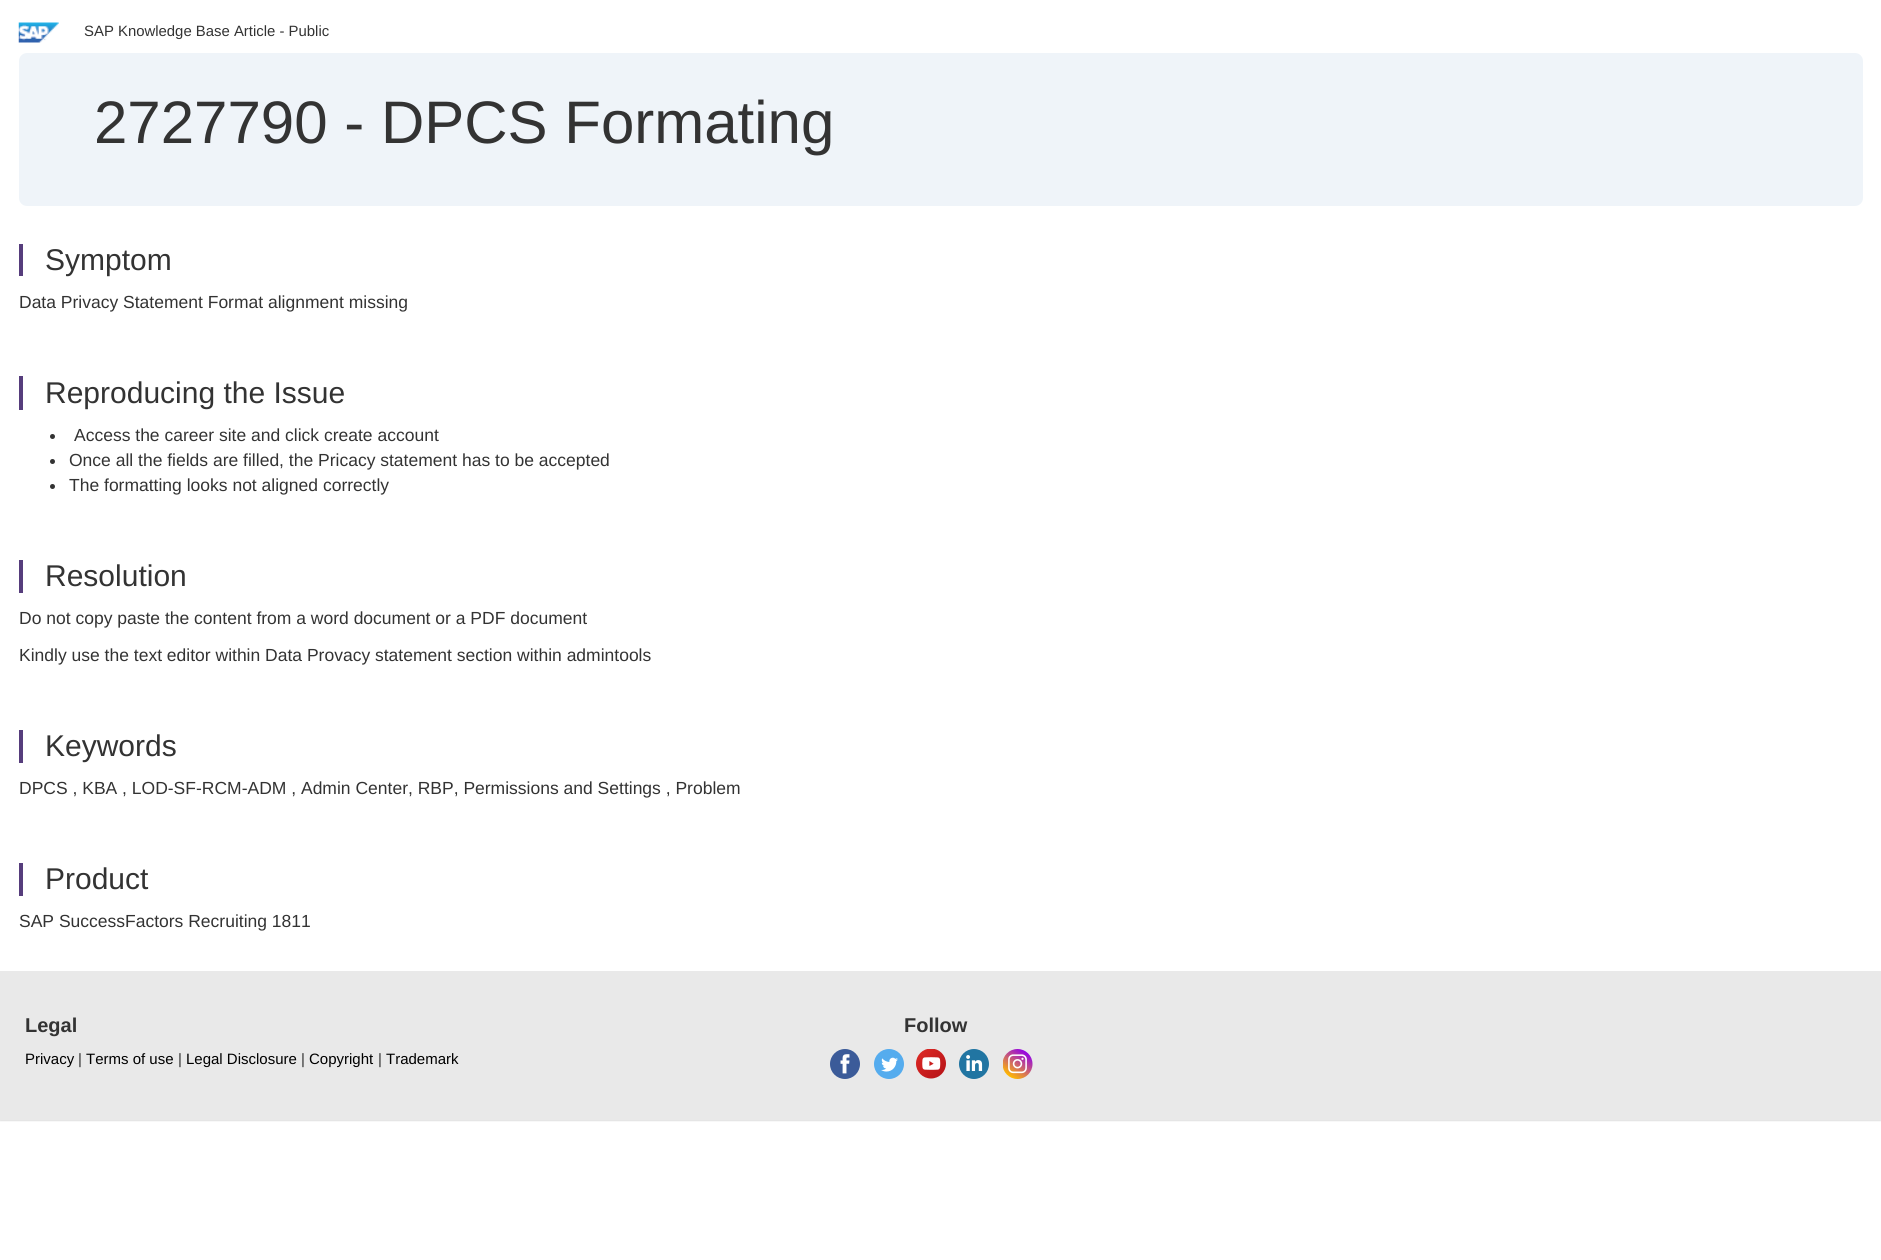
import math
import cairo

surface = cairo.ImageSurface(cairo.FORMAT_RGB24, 1881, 1260)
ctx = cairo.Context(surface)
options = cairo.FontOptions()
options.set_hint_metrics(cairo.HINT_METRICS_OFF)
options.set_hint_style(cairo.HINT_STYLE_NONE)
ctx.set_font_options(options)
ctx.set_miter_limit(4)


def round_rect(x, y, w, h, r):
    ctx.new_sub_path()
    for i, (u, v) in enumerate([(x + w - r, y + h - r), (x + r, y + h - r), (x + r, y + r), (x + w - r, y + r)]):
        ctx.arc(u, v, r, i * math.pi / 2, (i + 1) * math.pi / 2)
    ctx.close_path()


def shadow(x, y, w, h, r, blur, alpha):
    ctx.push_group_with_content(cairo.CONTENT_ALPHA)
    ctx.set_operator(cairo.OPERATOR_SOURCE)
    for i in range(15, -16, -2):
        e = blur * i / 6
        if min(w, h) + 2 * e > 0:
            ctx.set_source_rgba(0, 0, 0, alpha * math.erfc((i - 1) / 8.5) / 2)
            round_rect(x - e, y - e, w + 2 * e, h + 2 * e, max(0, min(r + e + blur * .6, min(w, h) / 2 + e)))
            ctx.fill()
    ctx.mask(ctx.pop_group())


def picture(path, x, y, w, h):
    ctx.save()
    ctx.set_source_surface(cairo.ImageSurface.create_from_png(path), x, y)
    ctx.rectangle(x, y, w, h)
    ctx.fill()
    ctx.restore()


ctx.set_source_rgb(1, 1, 1)
ctx.paint()
picture("img1.png", 18, 22, 41, 21)
ctx.select_font_face("Liberation Sans")
ctx.set_font_size(14.9)
ctx.set_source_rgb(0.2, 0.2, 0.2)
ctx.move_to(84, 36)
ctx.show_text("SAP Knowledge Base Article - Public")
ctx.set_source_rgb(0.937, 0.957, 0.976)
round_rect(19, 53, 1844, 153, 8)
ctx.fill()
ctx.set_font_size(60)
ctx.set_source_rgb(0.2, 0.2, 0.2)
ctx.move_to(94, 143)
ctx.show_text("2727790 - DPCS Formating")
ctx.set_source_rgb(0.337, 0.239, 0.486)
ctx.rectangle(19, 244, 4, 32)
ctx.fill()
ctx.set_font_size(30)
ctx.set_source_rgb(0.2, 0.2, 0.2)
ctx.move_to(45, 270)
ctx.show_text("Symptom")
ctx.set_font_size(17.5)
ctx.move_to(19, 308)
ctx.show_text("Data Privacy Statement Format alignment missing")
ctx.set_source_rgb(0.337, 0.239, 0.486)
ctx.rectangle(19, 376, 4, 34)
ctx.fill()
ctx.set_font_size(30)
ctx.set_source_rgb(0.2, 0.2, 0.2)
ctx.move_to(45, 403)
ctx.show_text("Reproducing the Issue")
ctx.new_path()
ctx.arc(52.5, 436.5, 2.5, 0, 2 * math.pi)
ctx.fill()
ctx.set_font_size(17.5)
ctx.move_to(74, 441)
ctx.show_text("Access the career site and click create account")
ctx.new_path()
ctx.arc(52.5, 461.5, 2.5, 0, 2 * math.pi)
ctx.fill()
ctx.move_to(69, 466)
ctx.show_text("Once all the fields are filled, the Pricacy statement has to be accepted")
ctx.new_path()
ctx.arc(52.5, 486.5, 2.5, 0, 2 * math.pi)
ctx.fill()
ctx.move_to(69, 491)
ctx.show_text("The formatting looks not aligned correctly")
ctx.set_source_rgb(0.337, 0.239, 0.486)
ctx.rectangle(19, 560, 4, 33)
ctx.fill()
ctx.set_font_size(30)
ctx.set_source_rgb(0.2, 0.2, 0.2)
ctx.move_to(45, 586)
ctx.show_text("Resolution")
ctx.set_font_size(17.5)
ctx.move_to(19, 624)
ctx.show_text("Do not copy paste the content from a word document or a PDF document")
ctx.move_to(19, 661)
ctx.show_text("Kindly use the text editor within Data Provacy statement section within admintools")
ctx.set_source_rgb(0.337, 0.239, 0.486)
ctx.rectangle(19, 730, 4, 33)
ctx.fill()
ctx.set_font_size(30)
ctx.set_source_rgb(0.2, 0.2, 0.2)
ctx.move_to(45, 756)
ctx.show_text("Keywords")
ctx.set_font_size(17.5)
ctx.move_to(19, 794)
ctx.show_text("DPCS , KBA , LOD-SF-RCM-ADM , Admin Center, RBP, Permissions and Settings , Problem")
ctx.set_source_rgb(0.337, 0.239, 0.486)
ctx.rectangle(19, 863, 4, 33)
ctx.fill()
ctx.set_font_size(30)
ctx.set_source_rgb(0.2, 0.2, 0.2)
ctx.move_to(45, 889)
ctx.show_text("Product")
ctx.set_font_size(17.5)
ctx.move_to(19, 927)
ctx.show_text("SAP SuccessFactors Recruiting 1811")
ctx.set_source_rgb(0, 0, 0)
shadow(0, 973, 1881, 148, 0, 0.5, 0.12)
ctx.set_source_rgb(0.914, 0.914, 0.914)
ctx.rectangle(0, 971, 1881, 149)
ctx.fill()
ctx.select_font_face("Liberation Sans", cairo.FONT_SLANT_NORMAL, cairo.FONT_WEIGHT_BOLD)
ctx.set_font_size(20)
ctx.set_source_rgb(0.2, 0.2, 0.2)
ctx.move_to(25, 1032)
ctx.show_text("Legal")
ctx.select_font_face("Liberation Sans")
ctx.set_font_size(15)
ctx.set_source_rgb(0, 0, 0)
ctx.move_to(25, 1064)
ctx.show_text("Privacy")
ctx.set_source_rgb(0.2, 0.2, 0.2)
ctx.move_to(78, 1064)
ctx.show_text("|")
ctx.set_source_rgb(0, 0, 0)
ctx.move_to(86, 1064)
ctx.show_text("Terms of use")
ctx.set_source_rgb(0.2, 0.2, 0.2)
ctx.move_to(178, 1064)
ctx.show_text("|")
ctx.set_source_rgb(0, 0, 0)
ctx.move_to(186, 1064)
ctx.show_text("Legal Disclosure")
ctx.set_source_rgb(0.2, 0.2, 0.2)
ctx.move_to(301, 1064)
ctx.show_text("|")
ctx.set_source_rgb(0, 0, 0)
ctx.move_to(309, 1064)
ctx.show_text("Copyright")
ctx.set_source_rgb(0.2, 0.2, 0.2)
ctx.move_to(378, 1064)
ctx.show_text("|")
ctx.set_source_rgb(0, 0, 0)
ctx.move_to(386, 1064)
ctx.show_text("Trademark")
ctx.select_font_face("Liberation Sans", cairo.FONT_SLANT_NORMAL, cairo.FONT_WEIGHT_BOLD)
ctx.set_font_size(20)
ctx.set_source_rgb(0.2, 0.2, 0.2)
ctx.move_to(904, 1032)
ctx.show_text("Follow")
picture("img2.png", 830, 1049, 30, 30)
picture("img3.png", 874, 1049, 30, 30)
picture("img4.png", 916, 1049, 30, 30)
picture("img5.png", 959, 1049, 30, 30)
picture("img6.png", 1003, 1049, 30, 30)
surface.write_to_png("page.png")
